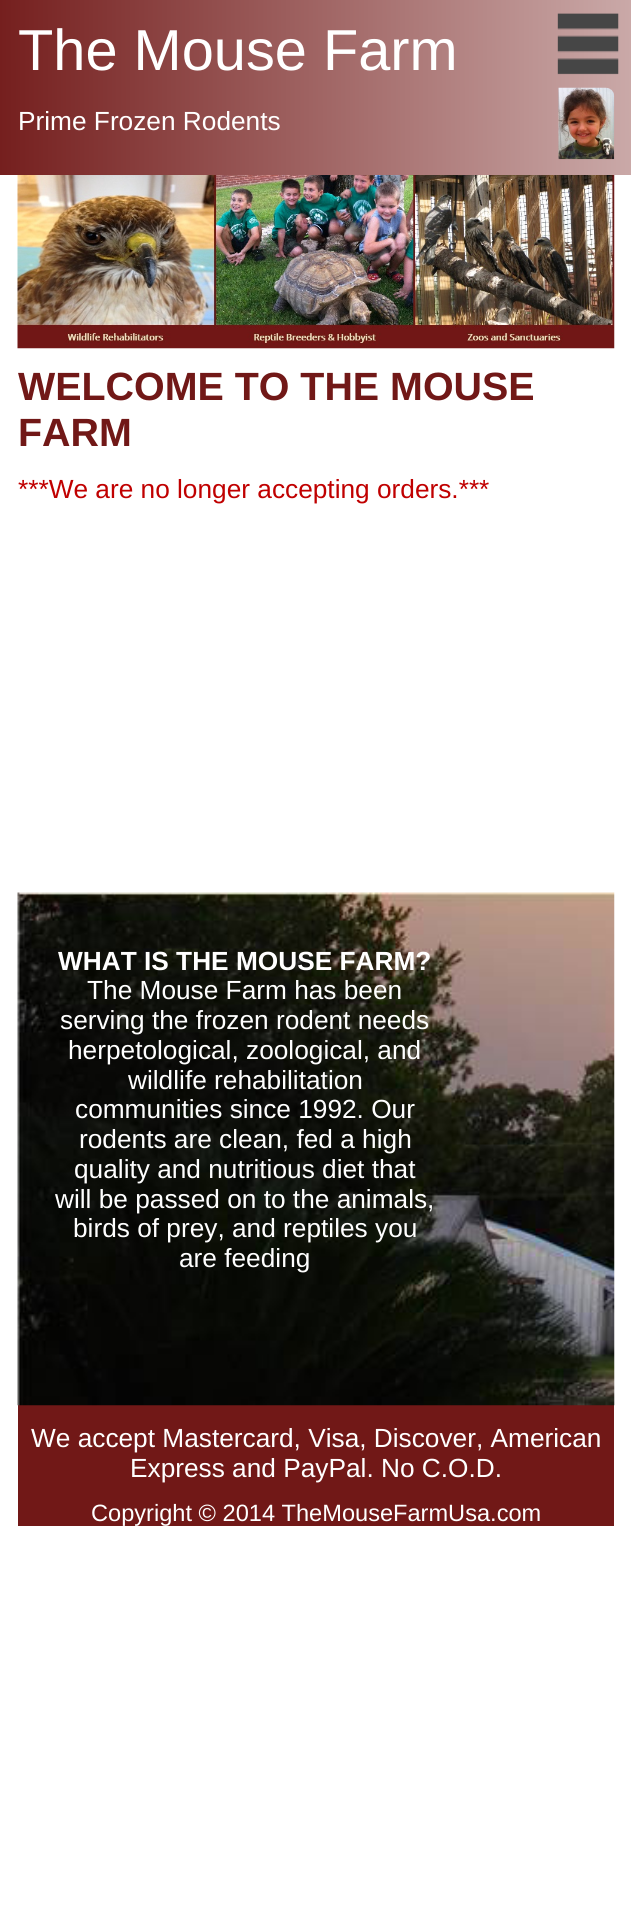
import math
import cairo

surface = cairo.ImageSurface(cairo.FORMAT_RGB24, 631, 1913)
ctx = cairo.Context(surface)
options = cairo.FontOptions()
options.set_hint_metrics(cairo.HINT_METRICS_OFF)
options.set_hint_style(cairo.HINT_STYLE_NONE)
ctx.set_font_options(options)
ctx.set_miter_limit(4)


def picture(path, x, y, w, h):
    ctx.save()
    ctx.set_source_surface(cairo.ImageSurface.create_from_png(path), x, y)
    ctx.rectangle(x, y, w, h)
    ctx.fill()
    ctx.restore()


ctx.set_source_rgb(1, 1, 1)
ctx.paint()
gradient = cairo.LinearGradient(0, 88, 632, 87)
gradient.add_color_stop_rgba(0, 0.459, 0.122, 0.118, 1)
gradient.add_color_stop_rgba(1, 0.792, 0.663, 0.659, 1)
ctx.set_source(gradient)
ctx.rectangle(0, 0, 631, 175)
ctx.fill()
picture("img1.png", 557, 13, 62, 62)
ctx.select_font_face("Liberation Sans")
ctx.set_font_size(57.75)
ctx.set_source_rgb(1, 1, 1)
ctx.move_to(18, 70)
ctx.show_text("The Mouse Farm")
ctx.set_font_size(26.25)
ctx.move_to(18, 130)
ctx.show_text("Prime Frozen Rodents")
picture("img2.png", 558, 87, 57, 73)
picture("img3.png", 17, 175, 598, 174)
ctx.select_font_face("Liberation Sans", cairo.FONT_SLANT_NORMAL, cairo.FONT_WEIGHT_BOLD)
ctx.set_font_size(39.4)
ctx.set_source_rgb(0.443, 0.094, 0.09)
ctx.move_to(18, 400)
ctx.show_text("WELCOME TO THE MOUSE")
ctx.move_to(18, 446)
ctx.show_text("FARM")
ctx.select_font_face("Liberation Sans")
ctx.set_font_size(26.25)
ctx.set_source_rgb(0.753, 0, 0)
ctx.move_to(18, 498)
ctx.show_text("***We are no longer accepting orders.***")
ctx.set_source_rgb(0.443, 0.094, 0.09)
ctx.rectangle(18, 1405, 596, 121)
ctx.fill()
picture("img4.png", 17, 892, 598, 514)
ctx.select_font_face("Liberation Sans", cairo.FONT_SLANT_NORMAL, cairo.FONT_WEIGHT_BOLD)
ctx.set_source_rgb(1, 1, 1)
ctx.move_to(58, 970)
ctx.show_text("WHAT IS THE MOUSE FARM?")
ctx.select_font_face("Liberation Sans")
ctx.move_to(87, 999)
ctx.show_text("The Mouse Farm has been")
ctx.move_to(60, 1029)
ctx.show_text("serving the frozen rodent needs")
ctx.move_to(68, 1059)
ctx.show_text("herpetological, zoological, and")
ctx.move_to(128, 1089)
ctx.show_text("wildlife rehabilitation")
ctx.move_to(75, 1118)
ctx.show_text("communities since 1992. Our")
ctx.move_to(79, 1148)
ctx.show_text("rodents are clean, fed a high")
ctx.move_to(74, 1178)
ctx.show_text("quality and nutritious diet that")
ctx.move_to(55, 1208)
ctx.show_text("will be passed on to the animals,")
ctx.move_to(73, 1237)
ctx.show_text("birds of prey, and reptiles you")
ctx.move_to(179, 1267)
ctx.show_text("are feeding")
ctx.move_to(31, 1447)
ctx.show_text("We accept Mastercard, Visa, Discover, American")
ctx.move_to(130, 1477)
ctx.show_text("Express and PayPal. No C.O.D.")
ctx.set_font_size(23.6)
ctx.move_to(91, 1521)
ctx.show_text("Copyright © 2014 TheMouseFarmUsa.com")
surface.write_to_png("page.png")
